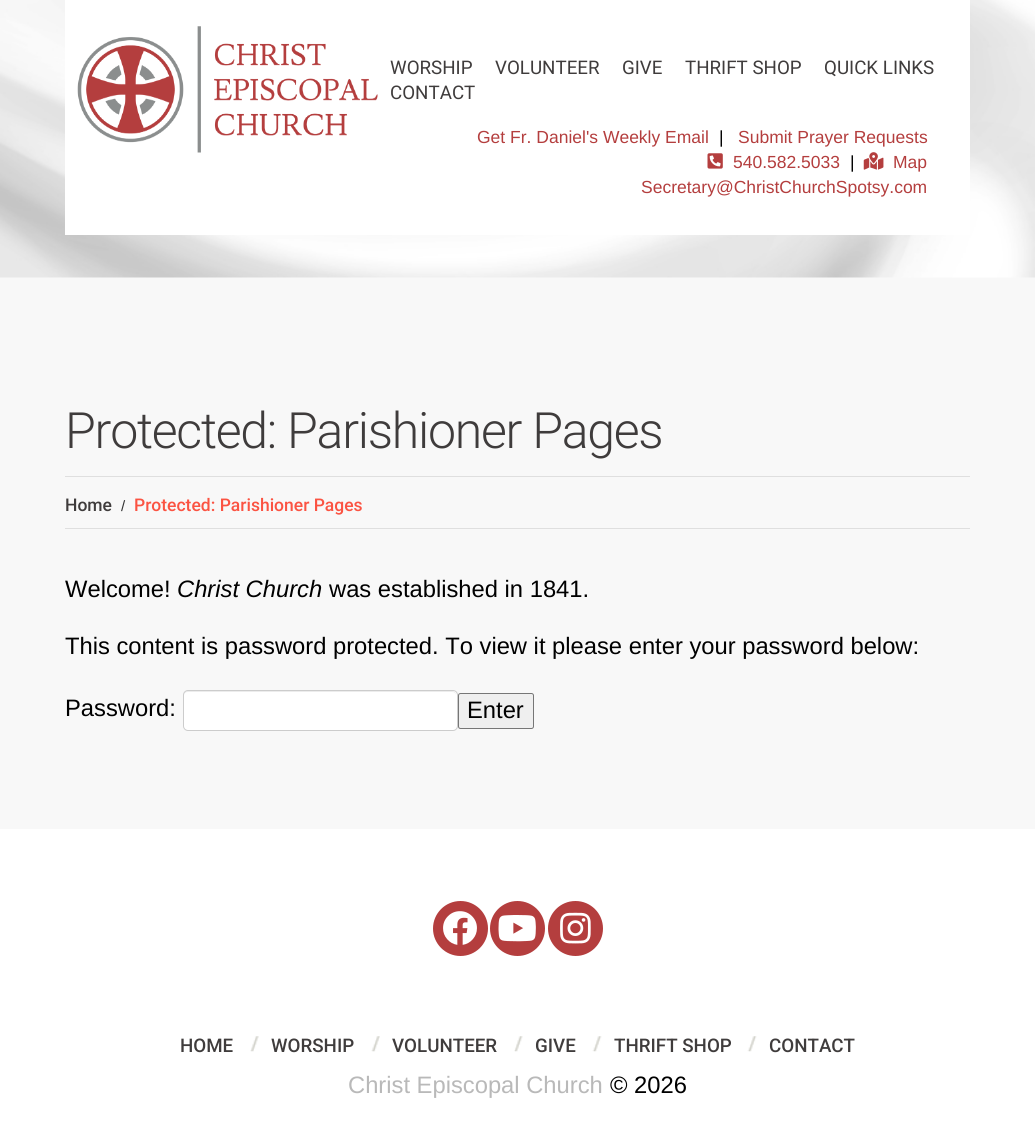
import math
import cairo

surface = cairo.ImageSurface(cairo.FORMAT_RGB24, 1035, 1144)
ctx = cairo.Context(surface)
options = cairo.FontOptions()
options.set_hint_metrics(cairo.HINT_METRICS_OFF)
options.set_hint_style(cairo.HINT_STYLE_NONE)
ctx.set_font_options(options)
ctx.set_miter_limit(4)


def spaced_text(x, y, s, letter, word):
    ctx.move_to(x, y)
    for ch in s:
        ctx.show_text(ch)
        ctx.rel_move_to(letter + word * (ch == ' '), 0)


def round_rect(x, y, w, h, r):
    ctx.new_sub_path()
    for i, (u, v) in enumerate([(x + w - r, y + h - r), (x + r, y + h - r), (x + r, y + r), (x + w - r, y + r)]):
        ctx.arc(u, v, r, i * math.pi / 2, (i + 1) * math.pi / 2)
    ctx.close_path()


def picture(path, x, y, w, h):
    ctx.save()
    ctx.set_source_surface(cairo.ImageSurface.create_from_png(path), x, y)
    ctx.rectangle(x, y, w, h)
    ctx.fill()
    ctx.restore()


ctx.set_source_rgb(0.969, 0.969, 0.969)
ctx.paint()
picture("img1.png", 0, 0, 1035, 278)
ctx.set_source_rgb(1, 1, 1)
ctx.rectangle(65, 0, 905, 235)
ctx.fill()
picture("img2.png", 77, 26, 301, 127)
ctx.select_font_face("Roboto")
ctx.set_font_size(18.75)
ctx.set_source_rgb(0.247, 0.235, 0.235)
ctx.move_to(390, 74)
ctx.show_text("WORSHIP")
ctx.move_to(495, 74)
ctx.show_text("VOLUNTEER")
ctx.move_to(622, 74)
ctx.show_text("GIVE")
ctx.move_to(685, 74)
ctx.show_text("THRIFT SHOP")
ctx.move_to(824, 74)
ctx.show_text("QUICK LINKS")
ctx.move_to(390, 99)
ctx.show_text("CONTACT")
ctx.select_font_face("Liberation Sans")
ctx.set_font_size(17.5)
ctx.set_source_rgb(0.706, 0.243, 0.243)
ctx.move_to(477, 143)
ctx.show_text("Get Fr. Daniel's Weekly Email")
ctx.set_source_rgb(0, 0, 0)
ctx.move_to(719, 143)
ctx.show_text("|")
ctx.set_source_rgb(0.706, 0.243, 0.243)
ctx.move_to(738, 143)
ctx.show_text("Submit Prayer Requests")
picture("img3.png", 707, 153, 16, 16)
ctx.move_to(733, 168)
ctx.show_text("540.582.5033")
ctx.set_source_rgb(0, 0, 0)
ctx.move_to(850, 168)
ctx.show_text("|")
picture("img4.png", 863, 152, 21, 18)
ctx.set_source_rgb(0.706, 0.243, 0.243)
ctx.move_to(893, 168)
ctx.show_text("Map")
ctx.move_to(641, 193)
ctx.show_text("Secretary@ChristChurchSpotsy.com")
ctx.select_font_face("Roboto Light")
ctx.set_font_size(50)
ctx.set_source_rgb(0.247, 0.235, 0.235)
spaced_text(65, 448, "Protected: Parishioner Pages", -1.25, 0)
ctx.set_source_rgb(0.875, 0.875, 0.875)
ctx.rectangle(65, 476, 905, 1)
ctx.fill()
ctx.rectangle(65, 528, 905, 1)
ctx.fill()
ctx.select_font_face("Roboto Medium")
ctx.set_font_size(17.5)
ctx.set_source_rgb(0.247, 0.235, 0.235)
ctx.move_to(65, 511)
ctx.show_text("Home")
ctx.select_font_face("Liberation Sans")
ctx.set_font_size(15)
ctx.set_source_rgb(0.2, 0.2, 0.2)
ctx.move_to(121, 511)
ctx.show_text("/")
ctx.select_font_face("Roboto Medium")
ctx.set_font_size(17.5)
ctx.set_source_rgb(0.984, 0.325, 0.259)
ctx.move_to(134, 511)
ctx.show_text("Protected: Parishioner Pages")
ctx.select_font_face("Liberation Sans")
ctx.set_font_size(23.75)
ctx.set_source_rgb(0, 0, 0)
ctx.move_to(65, 597)
ctx.show_text("Welcome!")
ctx.select_font_face("Liberation Sans", cairo.FONT_SLANT_ITALIC)
ctx.move_to(177, 597)
ctx.show_text("Christ Church")
ctx.select_font_face("Liberation Sans")
ctx.move_to(329, 597)
ctx.show_text("was established in 1841.")
ctx.move_to(65, 654)
ctx.show_text("This content is password protected. To view it please enter your password below:")
ctx.move_to(65, 716)
ctx.show_text("Password:")
ctx.set_source_rgb(1, 1, 1)
round_rect(183, 690, 275, 41, 5)
ctx.fill()
ctx.set_source_rgb(0.925, 0.925, 0.925)
ctx.new_path()
ctx.move_to(188, 692)
ctx.line_to(452, 692)
ctx.curve_to(455, 692, 456, 694, 456, 696)
ctx.curve_to(456, 693, 455, 691, 452, 691)
ctx.line_to(188, 691)
ctx.curve_to(185, 691, 184, 693, 184, 696)
ctx.curve_to(184, 694, 185, 692, 188, 692)
ctx.close_path()
ctx.fill()
round_rect(183.5, 690.5, 274, 40, 4.5)
ctx.set_source_rgb(0.8, 0.8, 0.8)
ctx.set_line_width(1)
ctx.stroke()
ctx.set_source_rgb(0.937, 0.937, 0.937)
round_rect(458.5, 693.5, 75, 35, 2)
ctx.fill_preserve()
ctx.set_source_rgb(0.463, 0.463, 0.463)
ctx.stroke()
ctx.set_source_rgb(0, 0, 0)
ctx.move_to(467, 718)
ctx.show_text("Enter")
ctx.set_source_rgb(1, 1, 1)
ctx.rectangle(0, 829, 1035, 315)
ctx.fill()
ctx.set_source_rgb(0.706, 0.243, 0.243)
ctx.arc(460.5, 928.5, 27.5, 0, 2 * math.pi)
ctx.fill()
picture("img5.png", 443, 911, 34, 34)
ctx.arc(517.5, 928.5, 27.5, 0, 2 * math.pi)
ctx.fill()
picture("img6.png", 498, 915, 38, 27)
ctx.arc(575.5, 928.5, 27.5, 0, 2 * math.pi)
ctx.fill()
picture("img7.png", 560, 912, 31, 32)
ctx.select_font_face("Roboto Medium")
ctx.set_font_size(18.75)
ctx.set_source_rgb(0.247, 0.235, 0.235)
ctx.move_to(180, 1052)
ctx.show_text("HOME")
picture("img8.png", 250, 1036, 9, 16)
ctx.move_to(271, 1052)
ctx.show_text("WORSHIP")
picture("img9.png", 371, 1036, 9, 16)
ctx.move_to(392, 1052)
ctx.show_text("VOLUNTEER")
picture("img10.png", 514, 1036, 9, 16)
ctx.move_to(535, 1052)
ctx.show_text("GIVE")
picture("img11.png", 592, 1036, 10, 16)
ctx.move_to(614, 1052)
ctx.show_text("THRIFT SHOP")
picture("img11.png", 747, 1036, 10, 16)
ctx.move_to(769, 1052)
ctx.show_text("CONTACT")
ctx.select_font_face("Liberation Sans")
ctx.set_font_size(23.75)
ctx.set_source_rgb(0.725, 0.725, 0.725)
ctx.move_to(348, 1093)
ctx.show_text("Christ Episcopal Church")
ctx.set_source_rgb(0, 0, 0)
ctx.move_to(610, 1093)
ctx.show_text("© 2026")
surface.write_to_png("page.png")
